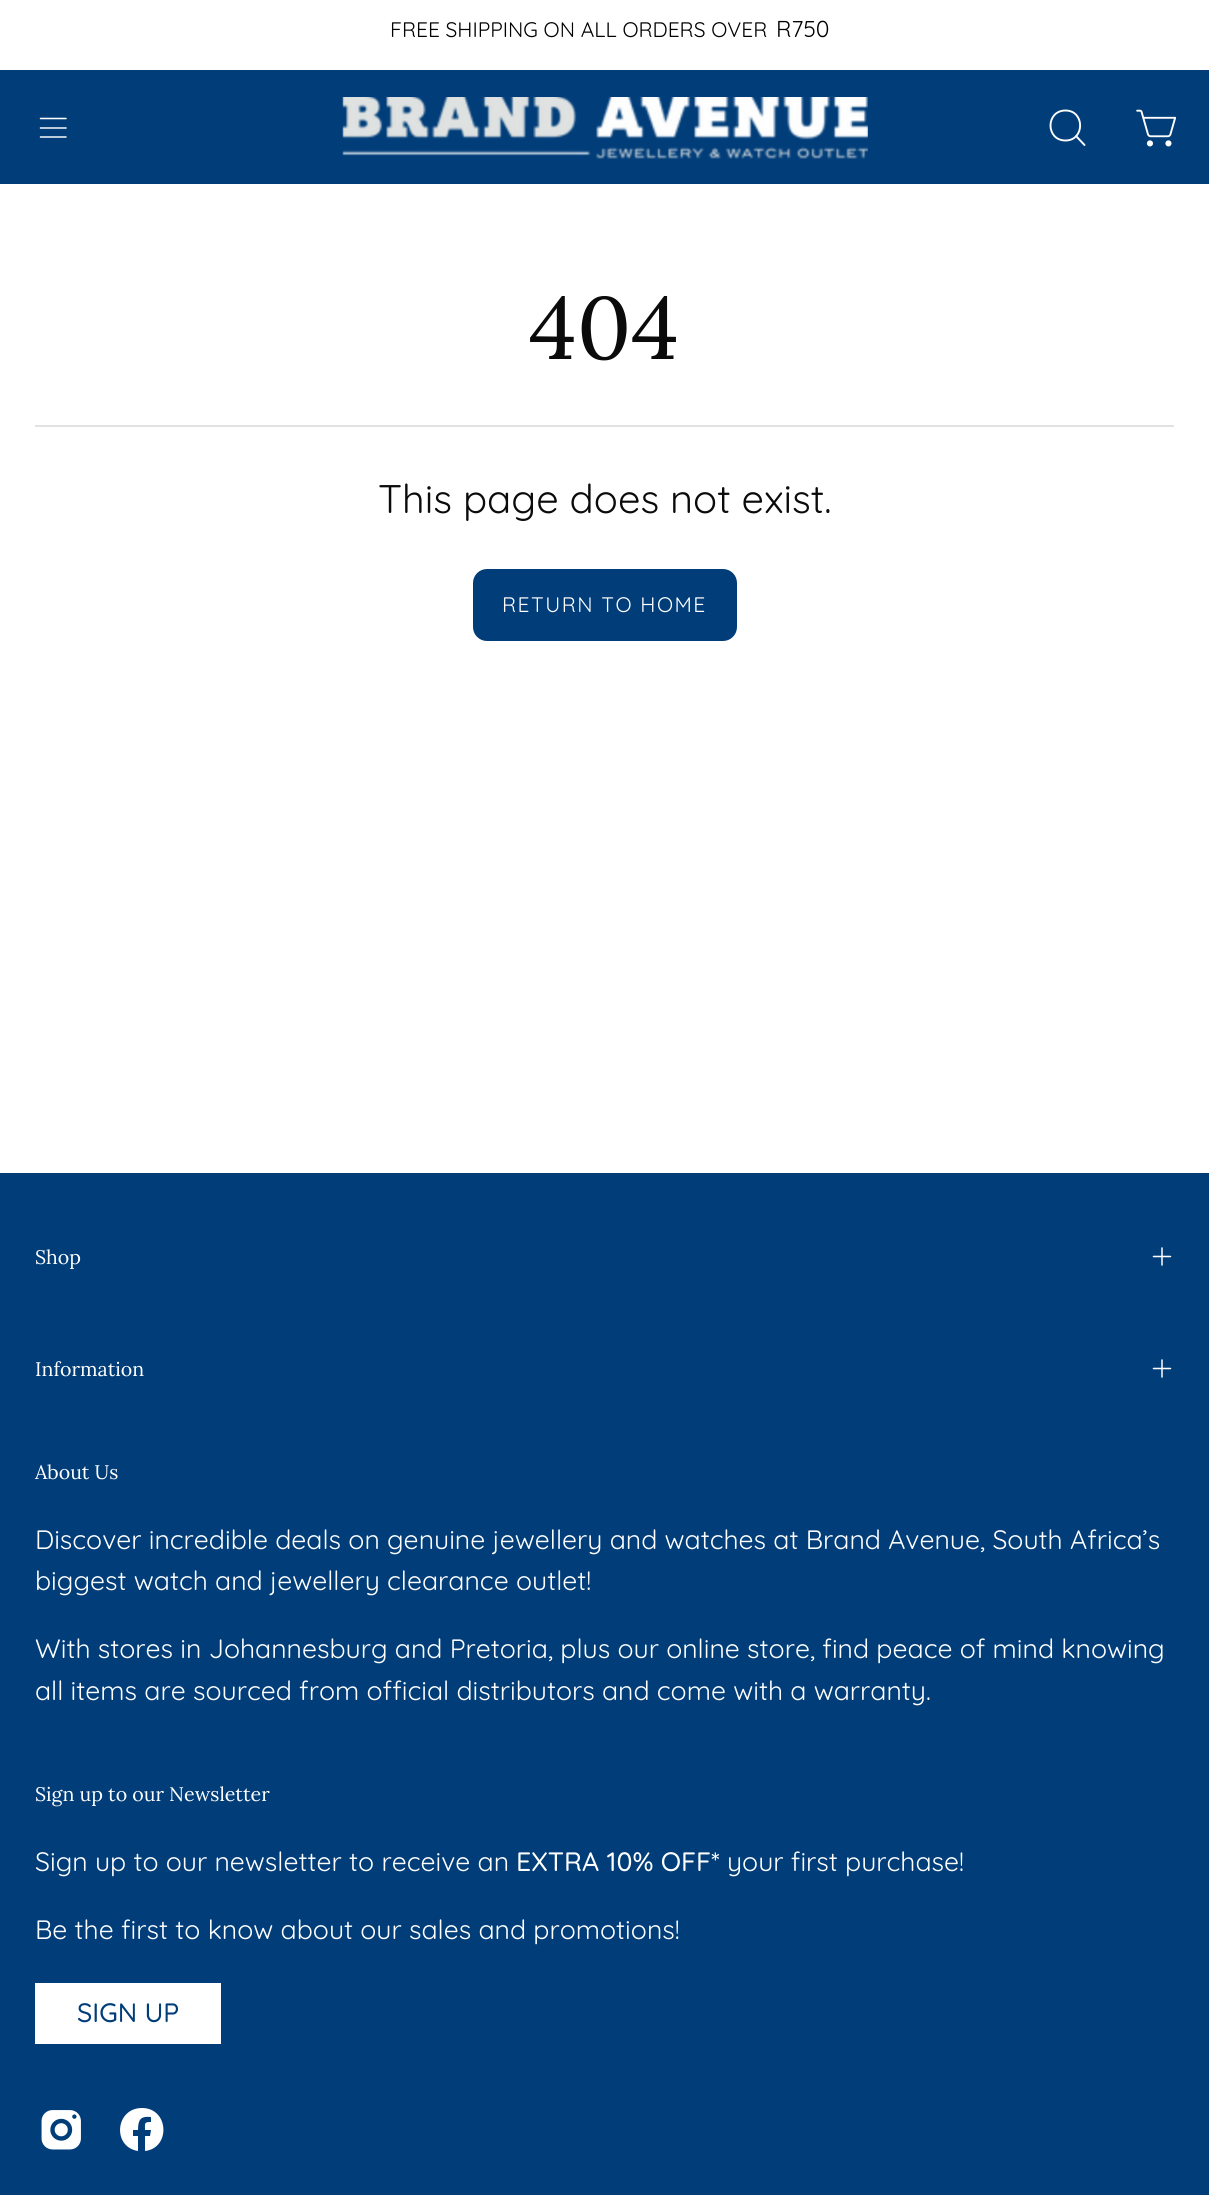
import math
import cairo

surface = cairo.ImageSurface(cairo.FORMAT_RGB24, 1209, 2195)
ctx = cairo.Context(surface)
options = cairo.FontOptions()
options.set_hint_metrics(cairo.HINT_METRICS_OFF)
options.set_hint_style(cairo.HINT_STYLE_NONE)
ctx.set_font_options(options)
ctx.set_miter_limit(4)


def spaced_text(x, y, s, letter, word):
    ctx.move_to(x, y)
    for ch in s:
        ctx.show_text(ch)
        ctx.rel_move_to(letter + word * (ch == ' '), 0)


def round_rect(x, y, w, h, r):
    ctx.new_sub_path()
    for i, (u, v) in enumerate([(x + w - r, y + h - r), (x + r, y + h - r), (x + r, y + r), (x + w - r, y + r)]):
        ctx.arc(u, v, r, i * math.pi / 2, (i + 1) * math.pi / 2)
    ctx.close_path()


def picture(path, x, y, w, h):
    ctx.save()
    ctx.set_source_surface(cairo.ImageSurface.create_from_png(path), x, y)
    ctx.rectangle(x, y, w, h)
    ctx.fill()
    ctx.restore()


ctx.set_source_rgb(1, 1, 1)
ctx.paint()
ctx.select_font_face("Quicksand Light")
ctx.set_font_size(21)
ctx.set_source_rgb(0, 0, 0)
ctx.move_to(390, 37)
ctx.show_text("FREE SHIPPING ON ALL ORDERS OVER")
ctx.set_font_size(23)
ctx.move_to(776, 37)
ctx.show_text("R750")
ctx.set_source_rgb(0, 0.239, 0.475)
ctx.rectangle(0, 70, 1209, 114)
ctx.fill()
ctx.new_path()
ctx.move_to(40.5, 128)
ctx.line_to(66, 128)
ctx.move_to(40.5, 118.5)
ctx.line_to(66, 118.5)
ctx.move_to(40.5, 137)
ctx.line_to(66, 137)
ctx.set_source_rgb(1, 1, 1)
ctx.set_line_width(1.5)
ctx.set_line_cap(cairo.LINE_CAP_ROUND)
ctx.set_line_join(cairo.LINE_JOIN_ROUND)
ctx.stroke()
picture("img1.png", 342, 97, 526, 62)
ctx.new_path()
ctx.move_to(1065.5, 140.5)
ctx.curve_to(1085, 140.5, 1085, 110.5, 1065.5, 110.5)
ctx.curve_to(1045.5, 110.5, 1045.5, 140.5, 1065.5, 140.5)
ctx.close_path()
ctx.move_to(1076, 136)
ctx.line_to(1084.5, 145)
ctx.set_line_width(1.9)
ctx.stroke()
picture("img2.png", 1136, 109, 41, 38)
ctx.select_font_face("Lora")
ctx.set_font_size(88)
ctx.set_source_rgb(0.043, 0.043, 0.043)
ctx.move_to(529, 359)
ctx.show_text("404")
ctx.set_source_rgb(0.878, 0.89, 0.886)
ctx.rectangle(35, 425, 1139, 2)
ctx.fill()
ctx.select_font_face("Quicksand Light")
ctx.set_font_size(39.9)
ctx.set_source_rgb(0.043, 0.043, 0.043)
ctx.move_to(378, 513)
ctx.show_text("This page does not exist.")
ctx.set_source_rgb(0, 0.239, 0.475)
round_rect(473, 569, 264, 72, 14)
ctx.fill()
ctx.set_font_size(21)
ctx.set_source_rgb(1, 1, 1)
spaced_text(502, 612, "RETURN TO HOME", 1.5, 0)
ctx.set_source_rgb(0, 0.239, 0.475)
ctx.rectangle(0, 1173, 1209, 1022)
ctx.fill()
ctx.select_font_face("Lora")
ctx.set_font_size(19.6)
ctx.set_source_rgb(1, 1, 1)
ctx.move_to(35, 1264)
ctx.show_text("Shop")
ctx.new_path()
ctx.move_to(1153.5, 1256.5)
ctx.line_to(1170.5, 1256.5)
ctx.move_to(1162, 1248)
ctx.line_to(1162, 1265)
ctx.move_to(1153.5, 1256.5)
ctx.line_to(1170.5, 1256.5)
ctx.set_line_width(1.5)
ctx.stroke()
ctx.move_to(35, 1376)
ctx.show_text("Information")
ctx.new_path()
ctx.move_to(1153.5, 1368.5)
ctx.line_to(1170.5, 1368.5)
ctx.move_to(1162, 1360)
ctx.line_to(1162, 1377)
ctx.move_to(1153.5, 1368.5)
ctx.line_to(1170.5, 1368.5)
ctx.stroke()
ctx.move_to(35, 1479)
ctx.show_text("About Us")
ctx.select_font_face("Quicksand Light")
ctx.set_font_size(26.6)
ctx.move_to(35, 1549)
ctx.show_text("Discover incredible deals on genuine jewellery and watches at Brand Avenue, South Africa’s")
ctx.move_to(35, 1590)
ctx.show_text("biggest watch and jewellery clearance outlet!")
ctx.move_to(35, 1658)
ctx.show_text("With stores in Johannesburg and Pretoria, plus our online store, find peace of mind knowing")
ctx.move_to(35, 1700)
ctx.show_text("all items are sourced from official distributors and come with a warranty.")
ctx.select_font_face("Lora")
ctx.set_font_size(19.6)
ctx.move_to(35, 1801)
ctx.show_text("Sign up to our Newsletter")
ctx.select_font_face("Quicksand Light")
ctx.set_font_size(26.6)
ctx.move_to(35, 1871)
ctx.show_text("Sign up to our newsletter to receive an")
ctx.select_font_face("Quicksand Medium")
ctx.move_to(516, 1871)
ctx.show_text("EXTRA 10% OFF*")
ctx.select_font_face("Quicksand Light")
ctx.move_to(727, 1871)
ctx.show_text("your first purchase!")
ctx.move_to(35, 1939)
ctx.show_text("Be the first to know about our sales and promotions!")
ctx.rectangle(35, 1983, 186, 61)
ctx.fill()
ctx.select_font_face("Quicksand Medium")
ctx.set_source_rgb(0, 0.239, 0.475)
ctx.move_to(77, 2022)
ctx.show_text("SIGN UP")
picture("img3.png", 41, 2110, 40, 40)
ctx.set_source_rgb(1, 1, 1)
ctx.new_path()
ctx.move_to(142, 2108)
ctx.curve_to(115, 2108, 112, 2147, 138, 2151)
ctx.line_to(138, 2136)
ctx.line_to(133, 2136)
ctx.line_to(133, 2130)
ctx.line_to(138, 2130)
ctx.curve_to(138, 2119, 141, 2116, 151, 2117)
ctx.line_to(151, 2122)
ctx.curve_to(144, 2122, 145, 2123, 145, 2130)
ctx.line_to(151, 2130)
ctx.line_to(150, 2136)
ctx.line_to(145, 2136)
ctx.line_to(145, 2151)
ctx.curve_to(171, 2148, 169, 2108, 142, 2108)
ctx.close_path()
ctx.fill()
surface.write_to_png("page.png")
